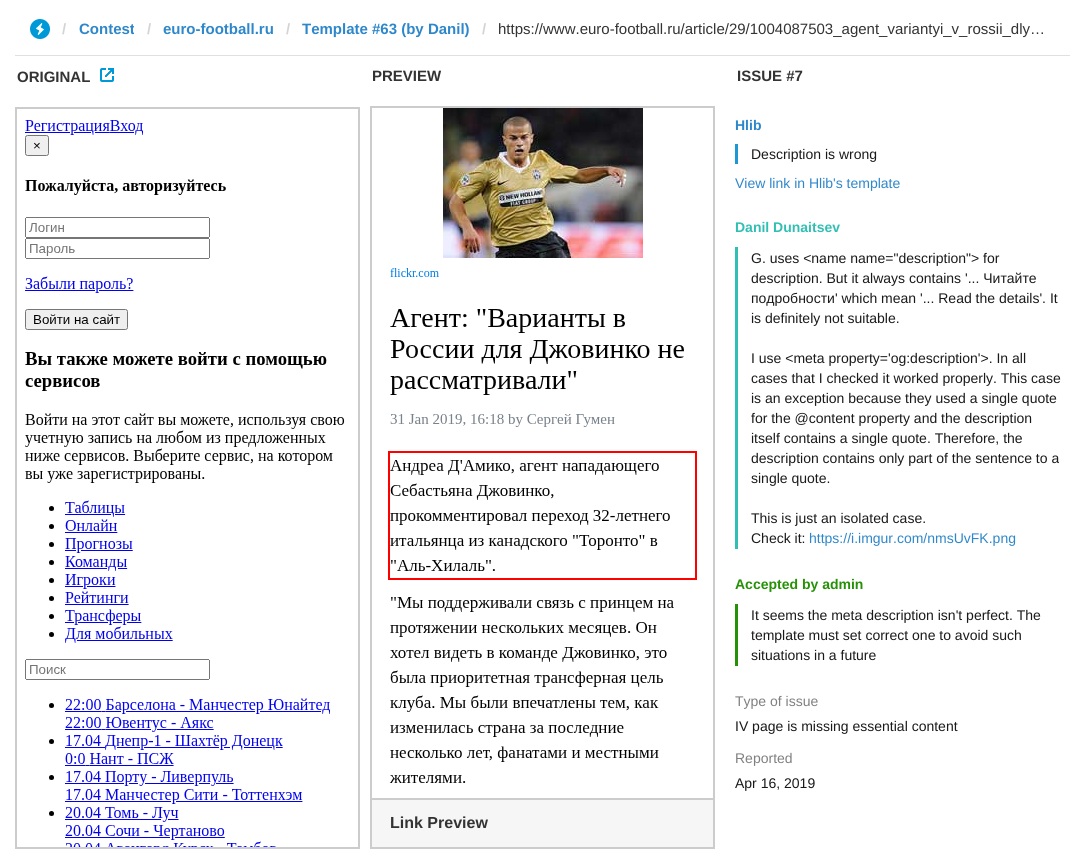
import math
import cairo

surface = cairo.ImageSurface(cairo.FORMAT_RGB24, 1085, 859)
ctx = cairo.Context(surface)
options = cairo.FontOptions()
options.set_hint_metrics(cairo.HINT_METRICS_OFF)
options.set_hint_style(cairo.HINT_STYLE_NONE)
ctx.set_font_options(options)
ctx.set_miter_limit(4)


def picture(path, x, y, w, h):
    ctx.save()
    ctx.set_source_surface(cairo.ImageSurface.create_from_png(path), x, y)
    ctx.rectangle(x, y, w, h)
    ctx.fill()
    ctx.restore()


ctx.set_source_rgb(1, 1, 1)
ctx.paint()
ctx.set_source_rgb(0.878, 0.878, 0.878)
ctx.rectangle(15, 55, 1055, 1)
ctx.fill()
picture("img1.png", 30, 19, 20, 20)
ctx.select_font_face("Liberation Sans", cairo.FONT_SLANT_NORMAL, cairo.FONT_WEIGHT_BOLD)
ctx.set_font_size(15)
ctx.set_source_rgb(0.831, 0.831, 0.831)
ctx.move_to(62, 34)
ctx.show_text("/")
ctx.save()
ctx.rectangle(79, 19, 55, 20)
ctx.clip()
ctx.set_source_rgb(0.18, 0.529, 0.792)
ctx.move_to(79, 34)
ctx.show_text("Contest")
ctx.restore()
ctx.move_to(147, 34)
ctx.show_text("/")
ctx.set_source_rgb(0.18, 0.529, 0.792)
ctx.move_to(163, 34)
ctx.show_text("euro-football.ru")
ctx.set_source_rgb(0.831, 0.831, 0.831)
ctx.move_to(286, 34)
ctx.show_text("/")
ctx.set_source_rgb(0.18, 0.529, 0.792)
ctx.move_to(302, 34)
ctx.show_text("Template #63 (by Danil)")
ctx.set_source_rgb(0.831, 0.831, 0.831)
ctx.move_to(482, 34)
ctx.show_text("/")
ctx.select_font_face("Liberation Sans")
ctx.set_source_rgb(0.2, 0.2, 0.2)
ctx.move_to(498, 34)
ctx.show_text("https://www.euro-football.ru/article/29/1004087503_agent_variantyi_v_rossii_dly…")
ctx.select_font_face("Liberation Sans", cairo.FONT_SLANT_NORMAL, cairo.FONT_WEIGHT_BOLD)
ctx.move_to(17, 82)
ctx.show_text("ORIGINAL")
picture("img2.png", 100, 68, 14, 14)
ctx.rectangle(16, 108, 343, 740)
ctx.set_source_rgb(0.8, 0.8, 0.8)
ctx.stroke()
picture("img3.png", 25, 120, 320, 727)
ctx.set_source_rgb(0.2, 0.2, 0.2)
ctx.move_to(372, 81)
ctx.show_text("PREVIEW")
ctx.rectangle(371, 107, 343, 741)
ctx.set_source_rgb(0.8, 0.8, 0.8)
ctx.stroke()
picture("img4.png", 388, 108, 309, 675)
ctx.rectangle(372, 798, 341, 2)
ctx.fill()
ctx.set_source_rgb(0.961, 0.961, 0.961)
ctx.rectangle(372, 800, 341, 47)
ctx.fill()
ctx.set_font_size(16)
ctx.set_source_rgb(0.2, 0.2, 0.2)
ctx.move_to(390, 828)
ctx.show_text("Link Preview")
ctx.set_font_size(15)
ctx.move_to(737, 81)
ctx.show_text("ISSUE #7")
ctx.set_font_size(14)
ctx.set_source_rgb(0.18, 0.529, 0.792)
ctx.move_to(735, 130)
ctx.show_text("Hlib")
ctx.set_source_rgb(0.118, 0.596, 0.831)
ctx.rectangle(735, 144, 3, 20)
ctx.fill()
ctx.select_font_face("Liberation Sans")
ctx.set_source_rgb(0.102, 0.102, 0.102)
ctx.move_to(751, 159)
ctx.show_text("Description is wrong")
ctx.set_source_rgb(0.18, 0.529, 0.792)
ctx.move_to(735, 188)
ctx.show_text("View link in Hlib's template")
ctx.select_font_face("Liberation Sans", cairo.FONT_SLANT_NORMAL, cairo.FONT_WEIGHT_BOLD)
ctx.set_source_rgb(0.196, 0.749, 0.702)
ctx.move_to(735, 232)
ctx.show_text("Danil Dunaitsev")
ctx.rectangle(735, 247, 3, 302)
ctx.fill()
ctx.select_font_face("Liberation Sans")
ctx.set_source_rgb(0.102, 0.102, 0.102)
ctx.move_to(751, 263)
ctx.show_text("G. uses <name name=\"description\"> for")
ctx.move_to(751, 283)
ctx.show_text("description. But it always contains '... Читайте")
ctx.move_to(751, 303)
ctx.show_text("подробности' which mean '... Read the details'. It")
ctx.move_to(751, 323)
ctx.show_text("is definitely not suitable.")
ctx.move_to(751, 363)
ctx.show_text("I use <meta property='og:description'>. In all")
ctx.move_to(751, 383)
ctx.show_text("cases that I checked it worked properly. This case")
ctx.move_to(751, 403)
ctx.show_text("is an exception because they used a single quote")
ctx.move_to(751, 423)
ctx.show_text("for the @content property and the description")
ctx.move_to(751, 443)
ctx.show_text("itself contains a single quote. Therefore, the")
ctx.move_to(751, 463)
ctx.show_text("description contains only part of the sentence to a")
ctx.move_to(751, 483)
ctx.show_text("single quote.")
ctx.move_to(751, 523)
ctx.show_text("This is just an isolated case.")
ctx.move_to(751, 543)
ctx.show_text("Check it:")
ctx.set_source_rgb(0.18, 0.529, 0.792)
ctx.move_to(809, 543)
ctx.show_text("https://i.imgur.com/nmsUvFK.png")
ctx.select_font_face("Liberation Sans", cairo.FONT_SLANT_NORMAL, cairo.FONT_WEIGHT_BOLD)
ctx.set_source_rgb(0.141, 0.569, 0.024)
ctx.move_to(735, 589)
ctx.show_text("Accepted by admin")
ctx.rectangle(735, 604, 3, 62)
ctx.fill()
ctx.select_font_face("Liberation Sans")
ctx.set_source_rgb(0.102, 0.102, 0.102)
ctx.move_to(751, 620)
ctx.show_text("It seems the meta description isn't perfect. The")
ctx.move_to(751, 640)
ctx.show_text("template must set correct one to avoid such")
ctx.move_to(751, 660)
ctx.show_text("situations in a future")
ctx.set_source_rgb(0.502, 0.502, 0.502)
ctx.move_to(735, 706)
ctx.show_text("Type of issue")
ctx.set_source_rgb(0.102, 0.102, 0.102)
ctx.move_to(735, 731)
ctx.show_text("IV page is missing essential content")
ctx.set_source_rgb(0.502, 0.502, 0.502)
ctx.move_to(735, 763)
ctx.show_text("Reported")
ctx.set_source_rgb(0.102, 0.102, 0.102)
ctx.move_to(735, 788)
ctx.show_text("Apr 16, 2019")
surface.write_to_png("page.png")
